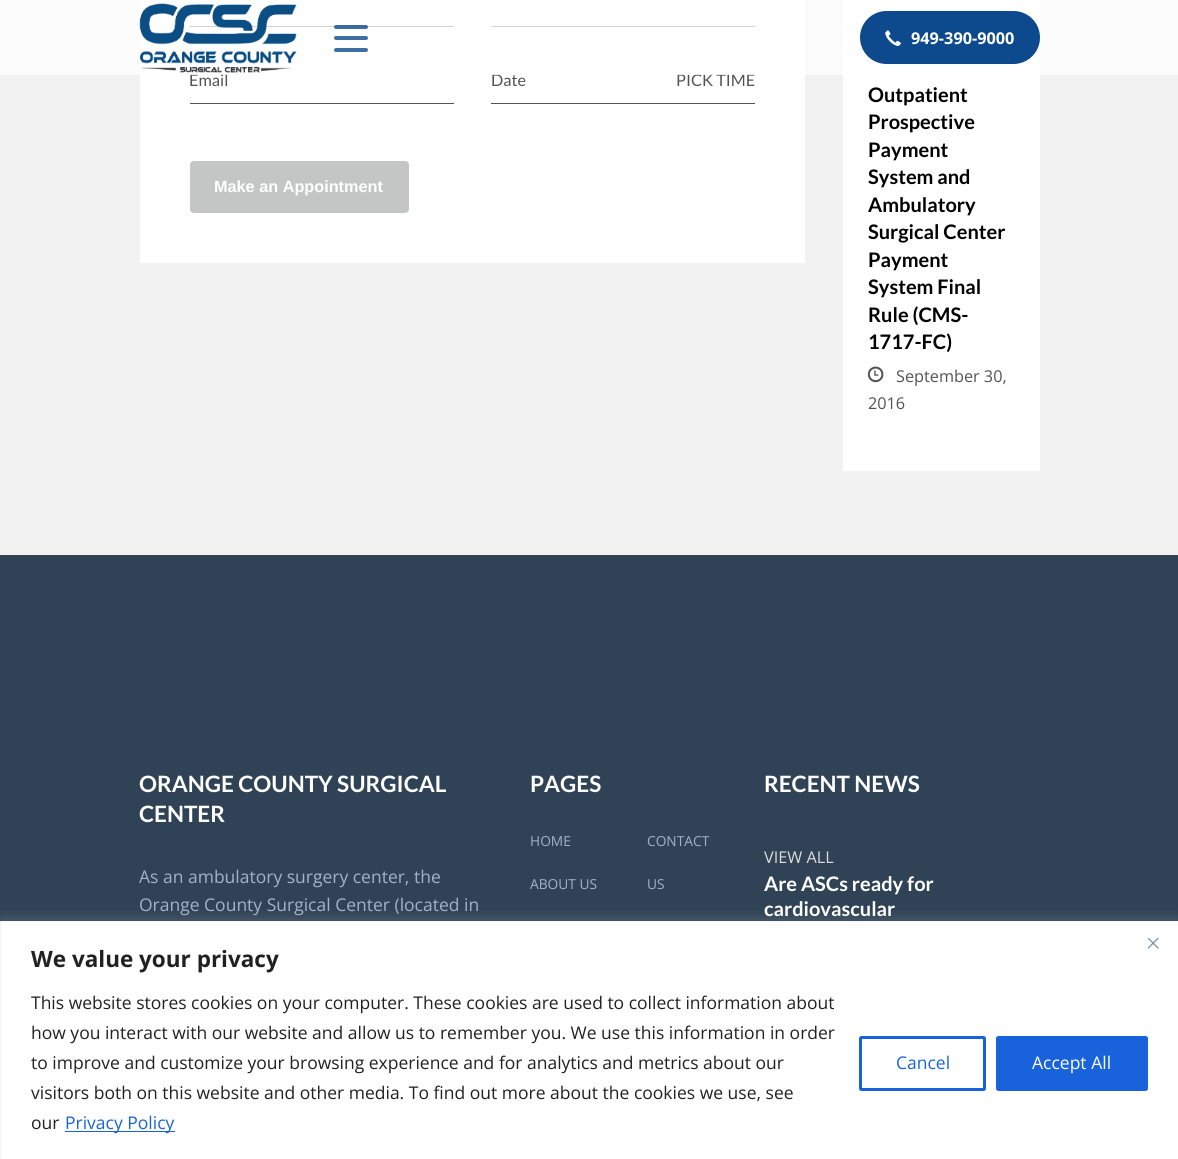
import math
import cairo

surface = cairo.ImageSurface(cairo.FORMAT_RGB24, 1178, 1159)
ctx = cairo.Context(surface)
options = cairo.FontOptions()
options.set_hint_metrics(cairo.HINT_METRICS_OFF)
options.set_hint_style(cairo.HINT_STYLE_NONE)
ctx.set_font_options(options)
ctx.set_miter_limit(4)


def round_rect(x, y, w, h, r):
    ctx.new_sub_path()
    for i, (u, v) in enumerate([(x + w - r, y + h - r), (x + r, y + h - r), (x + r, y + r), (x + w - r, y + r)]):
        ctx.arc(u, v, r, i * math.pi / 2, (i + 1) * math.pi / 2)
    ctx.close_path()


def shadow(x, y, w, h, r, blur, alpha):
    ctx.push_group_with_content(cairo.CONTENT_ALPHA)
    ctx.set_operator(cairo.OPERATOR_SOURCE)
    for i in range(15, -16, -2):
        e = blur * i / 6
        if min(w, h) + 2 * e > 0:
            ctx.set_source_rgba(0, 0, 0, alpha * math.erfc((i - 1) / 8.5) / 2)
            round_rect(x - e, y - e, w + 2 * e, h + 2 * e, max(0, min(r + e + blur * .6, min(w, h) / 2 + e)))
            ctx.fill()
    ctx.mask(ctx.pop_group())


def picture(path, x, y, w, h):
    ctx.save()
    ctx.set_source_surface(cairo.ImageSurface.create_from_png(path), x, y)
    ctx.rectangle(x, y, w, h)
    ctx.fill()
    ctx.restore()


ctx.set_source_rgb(0.949, 0.949, 0.949)
ctx.paint()
ctx.set_source_rgb(1, 1, 1)
ctx.rectangle(140, 0, 665, 263)
ctx.fill()
ctx.set_source_rgb(0.333, 0.333, 0.333)
ctx.rectangle(190, 26, 264, 1)
ctx.fill()
ctx.rectangle(491, 26, 264, 1)
ctx.fill()
ctx.select_font_face("Lato")
ctx.set_font_size(16.25)
ctx.set_source_rgb(0.325, 0.325, 0.325)
ctx.move_to(189, 86)
ctx.show_text("Email")
ctx.move_to(491, 86)
ctx.show_text("Date")
ctx.move_to(676, 86)
ctx.show_text("PICK TIME")
ctx.set_source_rgb(1, 1, 1)
ctx.rectangle(843, 0, 197, 471)
ctx.fill()
ctx.set_source_rgba(1, 1, 1, 0.75)
ctx.rectangle(0, 0, 1178, 75)
ctx.fill()
picture("img1.png", 139, 3, 158, 70)
ctx.set_source_rgba(0.051, 0.29, 0.553, 0.8)
round_rect(334, 25, 34, 4, 2)
ctx.fill()
ctx.set_source_rgb(0.239, 0.431, 0.643)
round_rect(334, 36, 34, 4, 2)
ctx.fill()
round_rect(334, 48, 34, 4, 2)
ctx.fill()
ctx.set_source_rgb(0.051, 0.29, 0.553)
round_rect(860, 11, 180, 53, 26.5)
ctx.fill()
picture("img2.png", 885, 30, 16, 16)
ctx.select_font_face("Open Sans", cairo.FONT_SLANT_NORMAL, cairo.FONT_WEIGHT_BOLD)
ctx.set_source_rgb(1, 1, 1)
ctx.move_to(911, 44)
ctx.show_text("949-390-9000")
ctx.set_source_rgb(0.333, 0.333, 0.333)
ctx.rectangle(190, 103, 264, 1)
ctx.fill()
ctx.rectangle(491, 103, 264, 1)
ctx.fill()
ctx.set_source_rgb(0.769, 0.776, 0.776)
round_rect(190, 161, 219, 52, 4)
ctx.fill()
ctx.select_font_face("Liberation Sans", cairo.FONT_SLANT_NORMAL, cairo.FONT_WEIGHT_BOLD)
ctx.set_source_rgb(1, 1, 1)
ctx.move_to(214, 192)
ctx.show_text("Make an Appointment")
ctx.select_font_face("Lato", cairo.FONT_SLANT_NORMAL, cairo.FONT_WEIGHT_BOLD)
ctx.set_font_size(20)
ctx.set_source_rgb(0, 0, 0)
ctx.move_to(868, 102)
ctx.show_text("Outpatient")
ctx.move_to(868, 129)
ctx.show_text("Prospective")
ctx.move_to(868, 157)
ctx.show_text("Payment")
ctx.move_to(868, 184)
ctx.show_text("System and")
ctx.move_to(868, 212)
ctx.show_text("Ambulatory")
ctx.move_to(868, 239)
ctx.show_text("Surgical Center")
ctx.move_to(868, 267)
ctx.show_text("Payment")
ctx.move_to(868, 294)
ctx.show_text("System Final")
ctx.move_to(868, 322)
ctx.show_text("Rule (CMS-")
ctx.move_to(868, 349)
ctx.show_text("1717-FC)")
picture("img3.png", 868, 366, 16, 17)
ctx.select_font_face("Open Sans")
ctx.set_font_size(16.25)
ctx.set_source_rgb(0.325, 0.325, 0.325)
ctx.move_to(896, 382)
ctx.show_text("September 30,")
ctx.move_to(868, 409)
ctx.show_text("2016")
ctx.set_source_rgb(0.188, 0.263, 0.337)
ctx.rectangle(0, 555, 1178, 366)
ctx.fill()
ctx.select_font_face("Lato", cairo.FONT_SLANT_NORMAL, cairo.FONT_WEIGHT_BOLD)
ctx.set_font_size(22.5)
ctx.set_source_rgb(1, 1, 1)
ctx.move_to(139, 792)
ctx.show_text("ORANGE COUNTY SURGICAL")
ctx.move_to(139, 822)
ctx.show_text("CENTER")
ctx.select_font_face("Open Sans")
ctx.set_font_size(17.5)
ctx.set_source_rgb(0.627, 0.706, 0.78)
ctx.move_to(139, 883)
ctx.show_text("As an ambulatory surgery center, the")
ctx.move_to(139, 911)
ctx.show_text("Orange County Surgical Center (located in")
ctx.select_font_face("Lato", cairo.FONT_SLANT_NORMAL, cairo.FONT_WEIGHT_BOLD)
ctx.set_font_size(22.5)
ctx.set_source_rgb(1, 1, 1)
ctx.move_to(530, 792)
ctx.show_text("PAGES")
ctx.select_font_face("Open Sans")
ctx.set_font_size(13.75)
ctx.set_source_rgb(0.627, 0.706, 0.78)
ctx.move_to(530, 846)
ctx.show_text("HOME")
ctx.move_to(530, 889)
ctx.show_text("ABOUT US")
ctx.move_to(647, 846)
ctx.show_text("CONTACT")
ctx.move_to(647, 889)
ctx.show_text("US")
ctx.select_font_face("Lato", cairo.FONT_SLANT_NORMAL, cairo.FONT_WEIGHT_BOLD)
ctx.set_font_size(22.5)
ctx.set_source_rgb(1, 1, 1)
ctx.move_to(764, 792)
ctx.show_text("RECENT NEWS")
ctx.select_font_face("Open Sans")
ctx.set_font_size(16.25)
ctx.set_source_rgb(0.863, 0.863, 0.863)
ctx.move_to(764, 863)
ctx.show_text("VIEW ALL")
ctx.select_font_face("Lato", cairo.FONT_SLANT_NORMAL, cairo.FONT_WEIGHT_BOLD)
ctx.set_font_size(20)
ctx.set_source_rgb(1, 1, 1)
ctx.move_to(764, 891)
ctx.show_text("Are ASCs ready for")
ctx.move_to(764, 916)
ctx.show_text("cardiovascular")
ctx.set_source_rgb(0.675, 0.671, 0.671)
shadow(0, 920, 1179, 239, 0, 6, 0.3)
ctx.set_source_rgb(1, 1, 1)
ctx.rectangle(0.5, 921.5, 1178, 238)
ctx.fill_preserve()
ctx.set_source_rgb(0.957, 0.957, 0.957)
ctx.set_line_width(1)
ctx.stroke()
picture("img4.png", 1148, 938, 11, 11)
ctx.select_font_face("Open Sans", cairo.FONT_SLANT_NORMAL, cairo.FONT_WEIGHT_BOLD)
ctx.set_font_size(22.5)
ctx.set_source_rgb(0.129, 0.129, 0.129)
ctx.move_to(31, 967)
ctx.show_text("We value your privacy")
ctx.select_font_face("Open Sans")
ctx.set_font_size(17.5)
ctx.move_to(31, 1009)
ctx.show_text("This website stores cookies on your computer. These cookies are used to collect information about")
ctx.move_to(31, 1039)
ctx.show_text("how you interact with our website and allow us to remember you. We use this information in order")
ctx.move_to(31, 1069)
ctx.show_text("to improve and customize your browsing experience and for analytics and metrics about our")
ctx.move_to(31, 1099)
ctx.show_text("visitors both on this website and other media. To find out more about the cookies we use, see")
ctx.move_to(31, 1129)
ctx.show_text("our")
ctx.set_source_rgb(0.094, 0.388, 0.863)
ctx.rectangle(65, 1131, 110, 1)
ctx.fill()
ctx.move_to(65, 1129)
ctx.show_text("Privacy Policy")
round_rect(860.5, 1037.5, 124, 52, 1)
ctx.set_line_width(3)
ctx.stroke()
ctx.move_to(896, 1069)
ctx.show_text("Cancel")
round_rect(997.5, 1037.5, 149, 52, 1)
ctx.fill_preserve()
ctx.stroke()
ctx.set_source_rgb(1, 1, 1)
ctx.move_to(1032, 1069)
ctx.show_text("Accept All")
surface.write_to_png("page.png")
